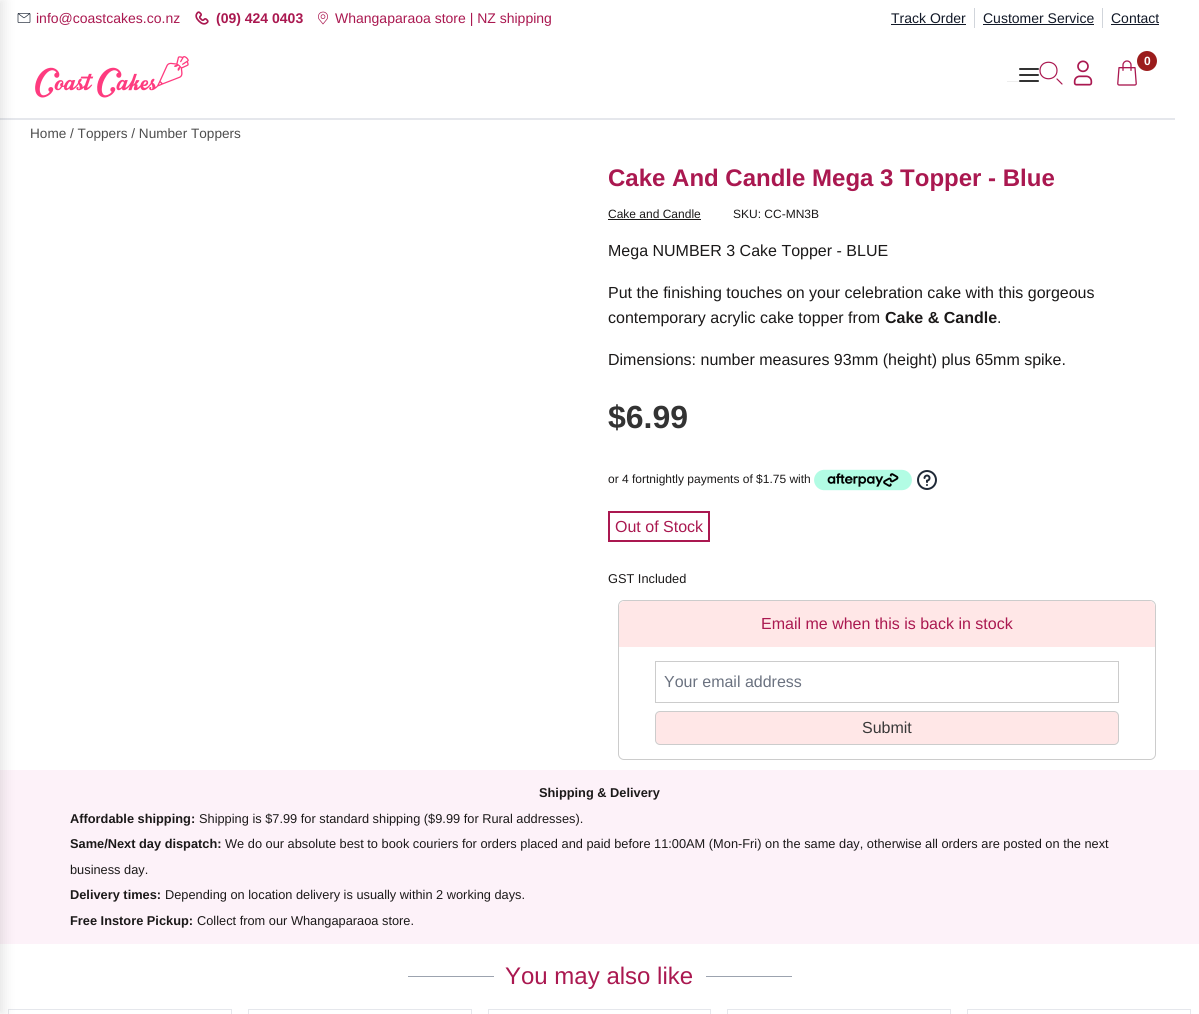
import math
import cairo

surface = cairo.ImageSurface(cairo.FORMAT_RGB24, 1199, 1014)
ctx = cairo.Context(surface)
options = cairo.FontOptions()
options.set_hint_metrics(cairo.HINT_METRICS_OFF)
options.set_hint_style(cairo.HINT_STYLE_NONE)
ctx.set_font_options(options)
ctx.set_miter_limit(4)


def round_rect(x, y, w, h, r):
    ctx.new_sub_path()
    for i, (u, v) in enumerate([(x + w - r, y + h - r), (x + r, y + h - r), (x + r, y + r), (x + w - r, y + r)]):
        ctx.arc(u, v, r, i * math.pi / 2, (i + 1) * math.pi / 2)
    ctx.close_path()


def shadow(x, y, w, h, r, blur, alpha):
    ctx.push_group_with_content(cairo.CONTENT_ALPHA)
    ctx.set_operator(cairo.OPERATOR_SOURCE)
    for i in range(15, -16, -2):
        e = blur * i / 6
        if min(w, h) + 2 * e > 0:
            ctx.set_source_rgba(0, 0, 0, alpha * math.erfc((i - 1) / 8.5) / 2)
            round_rect(x - e, y - e, w + 2 * e, h + 2 * e, max(0, min(r + e + blur * .6, min(w, h) / 2 + e)))
            ctx.fill()
    ctx.mask(ctx.pop_group())


def picture(path, x, y, w, h):
    ctx.save()
    ctx.set_source_surface(cairo.ImageSurface.create_from_png(path), x, y)
    ctx.rectangle(x, y, w, h)
    ctx.fill()
    ctx.restore()


ctx.set_source_rgb(1, 1, 1)
ctx.paint()
picture("img1.png", 17, 13, 14, 10)
ctx.select_font_face("Liberation Sans")
ctx.set_font_size(14)
ctx.set_source_rgb(0.667, 0.094, 0.314)
ctx.move_to(36, 23)
ctx.show_text("info@coastcakes.co.nz")
picture("img2.png", 195, 11, 14, 14)
ctx.select_font_face("Liberation Sans", cairo.FONT_SLANT_NORMAL, cairo.FONT_WEIGHT_BOLD)
ctx.move_to(216, 23)
ctx.show_text("(09) 424 0403")
picture("img3.png", 318, 11, 10, 14)
ctx.select_font_face("Liberation Sans")
ctx.move_to(335, 23)
ctx.show_text("Whangaparaoa store | NZ shipping")
ctx.set_source_rgb(0.067, 0.094, 0.153)
ctx.move_to(891, 23)
ctx.show_text("Track Order")
ctx.rectangle(891, 24, 75, 1)
ctx.fill()
ctx.set_source_rgb(0.82, 0.835, 0.859)
ctx.rectangle(974, 8, 1, 20)
ctx.fill()
ctx.set_source_rgb(0.067, 0.094, 0.153)
ctx.move_to(983, 23)
ctx.show_text("Customer Service")
ctx.rectangle(983, 24, 111, 1)
ctx.fill()
ctx.set_source_rgb(0.82, 0.835, 0.859)
ctx.rectangle(1102, 8, 1, 20)
ctx.fill()
ctx.set_source_rgb(0.067, 0.094, 0.153)
ctx.move_to(1111, 23)
ctx.show_text("Contact")
ctx.rectangle(1111, 24, 48, 1)
ctx.fill()
picture("img4.png", 35, 56, 154, 42)
ctx.set_source_rgb(0.898, 0.906, 0.922)
ctx.rectangle(0, 118, 1175, 2)
ctx.fill()
ctx.set_source_rgb(0.992, 0.949, 0.973)
ctx.rectangle(0, 770, 1199, 174)
ctx.fill()
ctx.rectangle(8.5, 1009.5, 223, 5)
ctx.set_source_rgb(0.898, 0.906, 0.922)
ctx.set_line_width(1)
ctx.stroke()
ctx.set_source_rgb(0, 0, 0)
shadow(-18, 0, 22, 1014, 0, 6, 0.1)
ctx.set_source_rgb(0.933, 0.933, 0.933)
ctx.rectangle(1007, 81, 32, 1)
ctx.fill()
ctx.new_path()
ctx.move_to(1020, 75)
ctx.line_to(1038, 75)
ctx.move_to(1020, 69)
ctx.line_to(1038, 69)
ctx.move_to(1020, 81)
ctx.line_to(1038, 81)
ctx.set_source_rgb(0.2, 0.2, 0.2)
ctx.set_line_width(2)
ctx.set_line_cap(cairo.LINE_CAP_ROUND)
ctx.set_line_join(cairo.LINE_JOIN_ROUND)
ctx.stroke()
ctx.new_path()
ctx.move_to(1062, 84)
ctx.line_to(1057, 79)
ctx.move_to(1057, 70.5)
ctx.curve_to(1057, 81.5, 1040, 81.5, 1040, 70.5)
ctx.curve_to(1040, 59.5, 1057, 59.5, 1057, 70.5)
ctx.close_path()
ctx.set_source_rgb(0.667, 0.094, 0.314)
ctx.set_line_width(1.2)
ctx.stroke()
picture("img5.png", 1073, 60, 20, 26)
picture("img6.png", 1117, 60, 20, 26)
ctx.set_source_rgb(0.608, 0.11, 0.11)
ctx.arc(1147, 61, 11, 0, 2 * math.pi)
ctx.fill_preserve()
ctx.set_source_rgb(1, 1, 1)
ctx.set_line_width(2)
ctx.set_line_cap(cairo.LINE_CAP_BUTT)
ctx.set_line_join(cairo.LINE_JOIN_MITER)
ctx.stroke()
ctx.select_font_face("Liberation Sans", cairo.FONT_SLANT_NORMAL, cairo.FONT_WEIGHT_BOLD)
ctx.set_font_size(12)
ctx.move_to(1144, 65)
ctx.show_text("0")
ctx.select_font_face("Liberation Sans")
ctx.set_font_size(13.6)
ctx.set_source_rgb(0.302, 0.302, 0.302)
ctx.move_to(30, 138)
ctx.show_text("Home / Toppers / Number Toppers")
ctx.select_font_face("Liberation Sans", cairo.FONT_SLANT_NORMAL, cairo.FONT_WEIGHT_BOLD)
ctx.set_font_size(24)
ctx.set_source_rgb(0.667, 0.094, 0.314)
ctx.move_to(608, 186)
ctx.show_text("Cake And Candle Mega 3 Topper - Blue")
ctx.select_font_face("Liberation Sans")
ctx.set_font_size(12)
ctx.set_source_rgb(0.106, 0.098, 0.098)
ctx.move_to(608, 218)
ctx.show_text("Cake and Candle")
ctx.rectangle(608, 219, 93, 1)
ctx.fill()
ctx.move_to(733, 218)
ctx.show_text("SKU: CC-MN3B")
ctx.set_font_size(16)
ctx.move_to(608, 256)
ctx.show_text("Mega NUMBER 3 Cake Topper - BLUE")
ctx.move_to(608, 298)
ctx.show_text("Put the finishing touches on your celebration cake with this gorgeous")
ctx.move_to(608, 323)
ctx.show_text("contemporary acrylic cake topper from")
ctx.select_font_face("Liberation Sans", cairo.FONT_SLANT_NORMAL, cairo.FONT_WEIGHT_BOLD)
ctx.move_to(885, 323)
ctx.show_text("Cake & Candle")
ctx.select_font_face("Liberation Sans")
ctx.move_to(997, 323)
ctx.show_text(".")
ctx.move_to(608, 365)
ctx.show_text("Dimensions: number measures 93mm (height) plus 65mm spike.")
ctx.select_font_face("Liberation Sans", cairo.FONT_SLANT_NORMAL, cairo.FONT_WEIGHT_BOLD)
ctx.set_font_size(32)
ctx.set_source_rgb(0.2, 0.2, 0.2)
ctx.move_to(608, 428)
ctx.show_text("$6.99")
ctx.select_font_face("Liberation Sans")
ctx.set_font_size(12)
ctx.set_source_rgb(0.106, 0.098, 0.098)
ctx.move_to(608, 483)
ctx.show_text("or 4 fortnightly payments of $1.75 with")
picture("img7.png", 814, 469, 98, 22)
picture("img8.png", 917, 470, 20, 20)
ctx.rectangle(609, 512, 100, 29)
ctx.set_source_rgb(0.667, 0.094, 0.314)
ctx.stroke()
ctx.set_font_size(16)
ctx.move_to(615, 532)
ctx.show_text("Out of Stock")
ctx.set_font_size(12.8)
ctx.set_source_rgb(0.106, 0.098, 0.098)
ctx.move_to(608, 583)
ctx.show_text("GST Included")
round_rect(618.5, 600.5, 537, 159, 5.5)
ctx.set_source_rgb(0.8, 0.8, 0.8)
ctx.set_line_width(1)
ctx.stroke()
ctx.set_source_rgb(1, 0.906, 0.906)
ctx.new_path()
ctx.move_to(625, 601)
ctx.line_to(1149, 601)
ctx.curve_to(1152.5, 601, 1155, 603.5, 1155, 607)
ctx.line_to(1155, 647)
ctx.line_to(619, 647)
ctx.line_to(619, 607)
ctx.curve_to(619, 603.5, 621.5, 601, 625, 601)
ctx.close_path()
ctx.fill()
ctx.set_font_size(16)
ctx.set_source_rgb(0.667, 0.094, 0.314)
ctx.move_to(761, 629)
ctx.show_text("Email me when this is back in stock")
ctx.rectangle(655.5, 661.5, 463, 41)
ctx.set_source_rgb(0.8, 0.8, 0.8)
ctx.stroke()
ctx.set_source_rgb(0.42, 0.447, 0.502)
ctx.move_to(664, 687)
ctx.show_text("Your email address")
ctx.set_source_rgb(1, 0.906, 0.906)
round_rect(655.5, 711.5, 463, 33, 4.5)
ctx.fill_preserve()
ctx.set_source_rgb(0.8, 0.8, 0.8)
ctx.stroke()
ctx.set_source_rgb(0.224, 0.224, 0.224)
ctx.move_to(862, 733)
ctx.show_text("Submit")
ctx.select_font_face("Liberation Sans", cairo.FONT_SLANT_NORMAL, cairo.FONT_WEIGHT_BOLD)
ctx.set_font_size(12.8)
ctx.set_source_rgb(0.106, 0.098, 0.098)
ctx.move_to(539, 797)
ctx.show_text("Shipping & Delivery")
ctx.move_to(70, 823)
ctx.show_text("Affordable shipping:")
ctx.select_font_face("Liberation Sans")
ctx.move_to(199, 823)
ctx.show_text("Shipping is $7.99 for standard shipping ($9.99 for Rural addresses).")
ctx.select_font_face("Liberation Sans", cairo.FONT_SLANT_NORMAL, cairo.FONT_WEIGHT_BOLD)
ctx.move_to(70, 848)
ctx.show_text("Same/Next day dispatch:")
ctx.select_font_face("Liberation Sans")
ctx.move_to(225, 848)
ctx.show_text("We do our absolute best to book couriers for orders placed and paid before 11:00AM (Mon-Fri) on the same day, otherwise all orders are posted on the next")
ctx.move_to(70, 874)
ctx.show_text("business day.")
ctx.select_font_face("Liberation Sans", cairo.FONT_SLANT_NORMAL, cairo.FONT_WEIGHT_BOLD)
ctx.move_to(70, 899)
ctx.show_text("Delivery times:")
ctx.select_font_face("Liberation Sans")
ctx.move_to(165, 899)
ctx.show_text("Depending on location delivery is usually within 2 working days.")
ctx.select_font_face("Liberation Sans", cairo.FONT_SLANT_NORMAL, cairo.FONT_WEIGHT_BOLD)
ctx.move_to(70, 925)
ctx.show_text("Free Instore Pickup:")
ctx.select_font_face("Liberation Sans")
ctx.move_to(197, 925)
ctx.show_text("Collect from our Whangaparaoa store.")
ctx.set_source_rgb(0.612, 0.639, 0.686)
ctx.rectangle(408, 976, 384, 1)
ctx.fill()
ctx.set_source_rgb(1, 1, 1)
ctx.rectangle(494, 976, 212, 1)
ctx.fill()
ctx.set_font_size(24)
ctx.set_source_rgb(0.667, 0.094, 0.314)
ctx.move_to(505, 984)
ctx.show_text("You may also like")
ctx.rectangle(248.5, 1009.5, 223, 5)
ctx.set_source_rgb(0.898, 0.906, 0.922)
ctx.stroke()
ctx.rectangle(488.5, 1009.5, 222, 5)
ctx.stroke()
ctx.rectangle(727.5, 1009.5, 223, 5)
ctx.stroke()
ctx.rectangle(967.5, 1009.5, 223, 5)
ctx.stroke()
surface.write_to_png("page.png")
